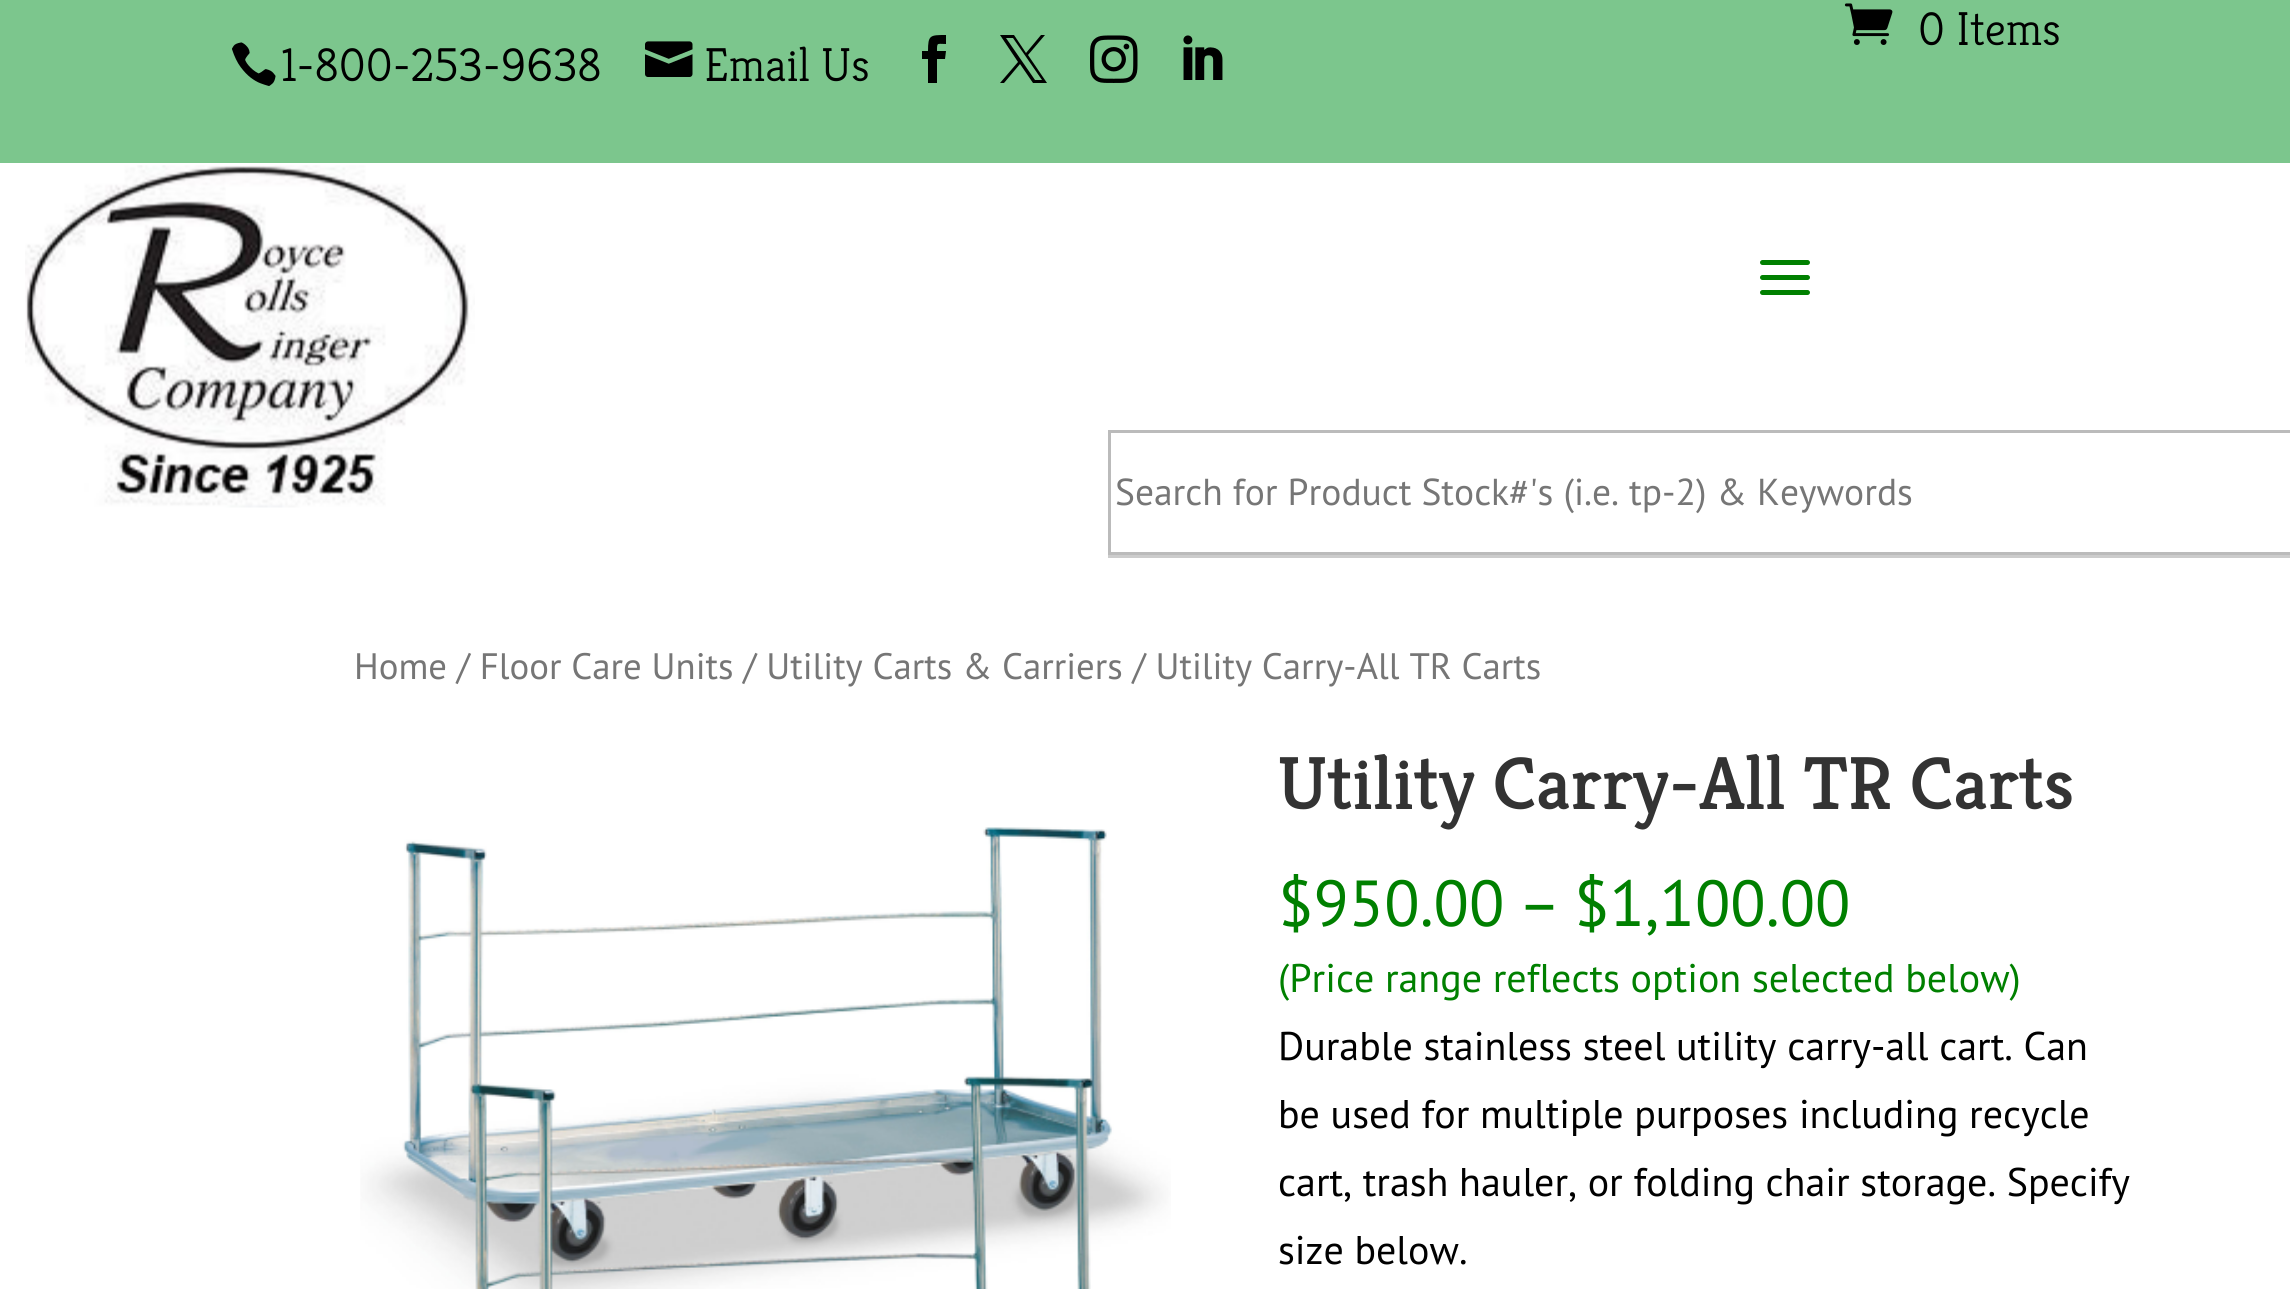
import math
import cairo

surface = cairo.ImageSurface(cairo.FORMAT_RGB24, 2290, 1289)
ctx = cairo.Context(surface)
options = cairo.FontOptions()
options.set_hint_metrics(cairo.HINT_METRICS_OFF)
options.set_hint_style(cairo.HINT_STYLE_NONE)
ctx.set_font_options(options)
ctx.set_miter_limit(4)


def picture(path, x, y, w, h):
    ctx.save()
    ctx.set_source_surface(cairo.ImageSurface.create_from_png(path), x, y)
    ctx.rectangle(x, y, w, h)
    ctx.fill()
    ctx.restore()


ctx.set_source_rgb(1, 1, 1)
ctx.paint()
ctx.set_source_rgb(0.486, 0.776, 0.553)
ctx.rectangle(0, 0, 2290, 163)
ctx.fill()
picture("img1.png", 1844, 3, 49, 42)
ctx.select_font_face("Kreon Light")
ctx.set_font_size(47.5)
ctx.set_source_rgb(0, 0, 0)
ctx.move_to(1918, 45)
ctx.show_text("0 Items")
picture("img2.png", 232, 42, 44, 44)
ctx.move_to(281, 81)
ctx.show_text("1-800-253-9638")
picture("img3.png", 645, 41, 48, 36)
ctx.move_to(704, 81)
ctx.show_text("Email Us")
ctx.new_path()
ctx.move_to(928, 83)
ctx.line_to(937, 83)
ctx.line_to(937, 59)
ctx.line_to(945, 59)
ctx.line_to(946, 51)
ctx.line_to(937, 51)
ctx.curve_to(937, 42, 937, 44, 946, 44)
ctx.line_to(946, 35)
ctx.curve_to(930, 35, 928, 35, 928, 51)
ctx.line_to(922, 51)
ctx.line_to(922, 59)
ctx.line_to(928, 59)
ctx.close_path()
ctx.fill()
ctx.new_path()
ctx.move_to(1000, 35)
ctx.line_to(1018, 62)
ctx.line_to(1000, 83)
ctx.line_to(1004, 83)
ctx.line_to(1020, 64)
ctx.line_to(1033, 83)
ctx.line_to(1047, 83)
ctx.line_to(1028, 55)
ctx.line_to(1045, 35)
ctx.line_to(1041, 35)
ctx.line_to(1026, 53)
ctx.line_to(1014, 35)
ctx.close_path()
ctx.move_to(1006, 38)
ctx.line_to(1013, 38)
ctx.line_to(1042, 80)
ctx.line_to(1035, 80)
ctx.close_path()
ctx.fill()
picture("img4.png", 1090, 35, 48, 48)
picture("img5.png", 1183, 35, 40, 45)
picture("img6.png", 25, 165, 450, 343)
picture("img7.png", 1760, 260, 50, 35)
ctx.rectangle(1109.5, 431.5, 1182, 122)
ctx.set_source_rgb(0.733, 0.733, 0.733)
ctx.set_line_width(3)
ctx.stroke()
ctx.select_font_face("PT Sans")
ctx.set_font_size(37.5)
ctx.set_source_rgb(0.463, 0.463, 0.463)
ctx.move_to(1115, 505)
ctx.show_text("Search for Product Stock#'s (i.e. tp-2) & Keywords")
ctx.set_source_rgb(0.8, 0.8, 0.8)
ctx.rectangle(1108, 555, 1182, 3)
ctx.fill()
ctx.set_font_size(36.8)
ctx.set_source_rgb(0.463, 0.463, 0.463)
ctx.move_to(354, 679)
ctx.show_text("Home / Floor Care Units / Utility Carts & Carriers / Utility Carry-All TR Carts")
picture("img8.png", 360, 827, 811, 462)
ctx.select_font_face("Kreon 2 Light")
ctx.set_font_size(75)
ctx.set_source_rgb(0.2, 0.2, 0.2)
ctx.move_to(1278, 809)
ctx.show_text("Utility Carry-All TR Carts")
ctx.select_font_face("PT Sans")
ctx.set_font_size(65)
ctx.set_source_rgb(0, 0.502, 0)
ctx.move_to(1278, 926)
ctx.show_text("$950.00")
ctx.move_to(1518, 926)
ctx.show_text("–")
ctx.move_to(1574, 926)
ctx.show_text("$1,100.00")
ctx.set_font_size(40)
ctx.move_to(1278, 992)
ctx.show_text("(Price range reflects option selected below)")
ctx.set_source_rgb(0, 0, 0)
ctx.move_to(1278, 1060)
ctx.show_text("Durable stainless steel utility carry-all cart. Can")
ctx.move_to(1278, 1128)
ctx.show_text("be used for multiple purposes including recycle")
ctx.move_to(1278, 1196)
ctx.show_text("cart, trash hauler, or folding chair storage. Specify")
ctx.move_to(1278, 1264)
ctx.show_text("size below.")
surface.write_to_png("page.png")
